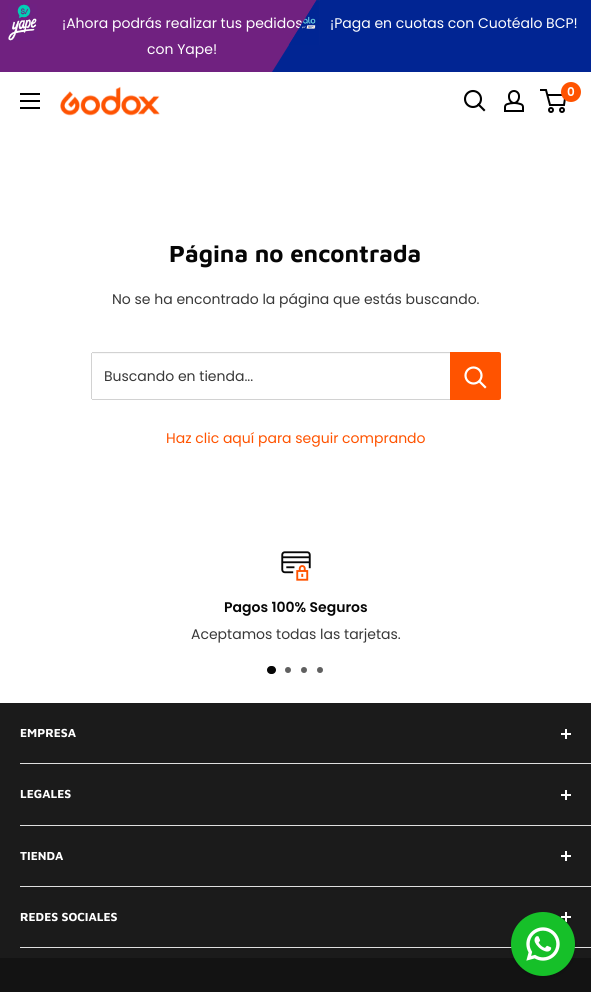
import math
import cairo

surface = cairo.ImageSurface(cairo.FORMAT_RGB24, 591, 992)
ctx = cairo.Context(surface)
options = cairo.FontOptions()
options.set_hint_metrics(cairo.HINT_METRICS_OFF)
options.set_hint_style(cairo.HINT_STYLE_NONE)
ctx.set_font_options(options)
ctx.set_miter_limit(4)


def round_rect(x, y, w, h, r):
    ctx.new_sub_path()
    for i, (u, v) in enumerate([(x + w - r, y + h - r), (x + r, y + h - r), (x + r, y + r), (x + w - r, y + r)]):
        ctx.arc(u, v, r, i * math.pi / 2, (i + 1) * math.pi / 2)
    ctx.close_path()


def shadow(x, y, w, h, r, blur, alpha):
    ctx.push_group_with_content(cairo.CONTENT_ALPHA)
    ctx.set_operator(cairo.OPERATOR_SOURCE)
    for i in range(15, -16, -2):
        e = blur * i / 6
        if min(w, h) + 2 * e > 0:
            ctx.set_source_rgba(0, 0, 0, alpha * math.erfc((i - 1) / 8.5) / 2)
            round_rect(x - e, y - e, w + 2 * e, h + 2 * e, max(0, min(r + e + blur * .6, min(w, h) / 2 + e)))
            ctx.fill()
    ctx.mask(ctx.pop_group())


def picture(path, x, y, w, h):
    ctx.save()
    ctx.set_source_surface(cairo.ImageSurface.create_from_png(path), x, y)
    ctx.rectangle(x, y, w, h)
    ctx.fill()
    ctx.restore()


ctx.set_source_rgb(1, 1, 1)
ctx.paint()
ctx.set_source_rgb(0.439, 0.129, 0.502)
ctx.new_path()
ctx.move_to(0, 0)
ctx.line_to(0, 72)
ctx.line_to(275, 72)
ctx.line_to(319, 0)
ctx.close_path()
ctx.fill()
picture("img1.png", 8, 4, 29, 37)
ctx.select_font_face("Poppins")
ctx.set_font_size(14)
ctx.set_source_rgb(1, 1, 1)
ctx.move_to(62, 28)
ctx.show_text("¡Ahora podrás realizar tus pedidos")
ctx.move_to(147, 54)
ctx.show_text("con Yape!")
ctx.set_source_rgb(0.004, 0.145, 0.576)
ctx.new_path()
ctx.move_to(272, 72)
ctx.line_to(591, 72)
ctx.line_to(591, 0)
ctx.line_to(317, 0)
ctx.close_path()
ctx.fill()
picture("img2.png", 288, 0, 32, 45)
ctx.set_source_rgb(1, 1, 1)
ctx.move_to(330, 28)
ctx.show_text("¡Paga en cuotas con Cuotéalo BCP!")
picture("img3.png", 60, 86, 100, 30)
ctx.new_path()
ctx.move_to(484, 110)
ctx.line_to(478.5, 104.5)
ctx.set_source_rgb(0, 0, 0)
ctx.set_line_width(2.1)
ctx.set_line_cap(cairo.LINE_CAP_SQUARE)
ctx.stroke()
ctx.arc(473, 99, 8, 0, 2 * math.pi)
ctx.set_line_cap(cairo.LINE_CAP_BUTT)
ctx.stroke()
picture("img4.png", 504, 90, 20, 22)
ctx.arc(551, 110, 2, 0, 2 * math.pi)
ctx.set_line_width(2)
ctx.stroke()
ctx.arc(562, 110, 2, 0, 2 * math.pi)
ctx.stroke()
ctx.new_path()
ctx.move_to(547.5, 95)
ctx.line_to(565.5, 95)
ctx.line_to(564, 105)
ctx.line_to(550, 105)
ctx.line_to(546, 90)
ctx.line_to(540, 90)
ctx.stroke()
ctx.set_source_rgb(1, 0.325, 0)
ctx.arc(571, 92, 10, 0, 2 * math.pi)
ctx.fill()
ctx.select_font_face("Poppins SemiBold")
ctx.set_font_size(12)
ctx.set_source_rgb(1, 1, 1)
ctx.move_to(567, 96)
ctx.show_text("0")
picture("img5.png", 20, 93, 20, 16)
ctx.select_font_face("Maven Pro", cairo.FONT_SLANT_NORMAL, cairo.FONT_WEIGHT_BOLD)
ctx.set_font_size(24)
ctx.set_source_rgb(0.027, 0.027, 0.027)
ctx.move_to(169, 262)
ctx.show_text("Página no encontrada")
ctx.select_font_face("Poppins")
ctx.set_font_size(14)
ctx.set_source_rgb(0.22, 0.22, 0.22)
ctx.move_to(112, 304)
ctx.show_text("No se ha encontrado la página que estás buscando.")
ctx.set_source_rgb(0.969, 0.969, 0.969)
ctx.new_path()
ctx.move_to(93, 354)
ctx.line_to(450, 354)
ctx.line_to(450, 353)
ctx.line_to(93, 353)
ctx.curve_to(92, 353, 92, 354, 92, 355)
ctx.curve_to(92, 354, 92, 354, 93, 354)
ctx.close_path()
ctx.fill()
ctx.set_source_rgb(0.824, 0.824, 0.824)
ctx.rectangle(92, 352, 358, 1)
ctx.fill()
ctx.rectangle(92, 399, 358, 1)
ctx.fill()
ctx.rectangle(91, 353, 1, 46)
ctx.fill()
ctx.set_source_rgb(0.22, 0.22, 0.22)
ctx.move_to(104, 381)
ctx.show_text("Buscando en tienda...")
ctx.set_source_rgb(1, 0.325, 0)
ctx.new_path()
ctx.move_to(450, 352)
ctx.line_to(499, 352)
ctx.curve_to(500, 352, 501, 353, 501, 354)
ctx.line_to(501, 398)
ctx.curve_to(501, 399, 500, 400, 499, 400)
ctx.line_to(450, 400)
ctx.close_path()
ctx.fill()
ctx.new_path()
ctx.move_to(485, 387)
ctx.line_to(479.5, 381.5)
ctx.set_source_rgb(1, 1, 1)
ctx.set_line_width(2.2)
ctx.set_line_cap(cairo.LINE_CAP_SQUARE)
ctx.stroke()
ctx.arc(473.5, 375.5, 8, 0, 2 * math.pi)
ctx.set_line_cap(cairo.LINE_CAP_BUTT)
ctx.stroke()
ctx.set_source_rgb(1, 0.325, 0)
ctx.move_to(166, 443)
ctx.show_text("Haz clic aquí para seguir comprando")
picture("img6.png", 281, 551, 30, 30)
ctx.select_font_face("Poppins SemiBold")
ctx.set_source_rgb(0.027, 0.027, 0.027)
ctx.move_to(224, 612)
ctx.show_text("Pagos 100% Seguros")
ctx.select_font_face("Poppins")
ctx.set_source_rgb(0.22, 0.22, 0.22)
ctx.move_to(191, 639)
ctx.show_text("Aceptamos todas las tarjetas.")
ctx.set_source_rgb(0.027, 0.027, 0.027)
round_rect(267, 666, 9, 8, 4)
ctx.fill()
ctx.set_source_rgb(0.376, 0.376, 0.376)
ctx.arc(288, 670, 3, 0, 2 * math.pi)
ctx.fill()
ctx.arc(304, 670, 3, 0, 2 * math.pi)
ctx.fill()
ctx.arc(320, 670, 3, 0, 2 * math.pi)
ctx.fill()
ctx.set_source_rgb(0.106, 0.106, 0.106)
ctx.rectangle(0, 703, 591, 255)
ctx.fill()
ctx.set_source_rgb(0.875, 0.875, 0.875)
ctx.rectangle(20, 763, 571, 1)
ctx.fill()
ctx.select_font_face("Maven Pro", cairo.FONT_SLANT_NORMAL, cairo.FONT_WEIGHT_BOLD)
ctx.set_font_size(12)
ctx.set_source_rgb(1, 1, 1)
ctx.move_to(20, 737)
ctx.show_text("EMPRESA")
ctx.rectangle(565, 729, 2, 10)
ctx.fill()
ctx.rectangle(561, 733, 10, 2)
ctx.fill()
ctx.set_source_rgb(0.875, 0.875, 0.875)
ctx.rectangle(20, 825, 571, 1)
ctx.fill()
ctx.set_source_rgb(1, 1, 1)
ctx.move_to(20, 798)
ctx.show_text("LEGALES")
ctx.rectangle(565, 790, 2, 10)
ctx.fill()
ctx.rectangle(561, 794, 10, 2)
ctx.fill()
ctx.set_source_rgb(0.875, 0.875, 0.875)
ctx.rectangle(20, 886, 571, 1)
ctx.fill()
ctx.set_source_rgb(1, 1, 1)
ctx.move_to(20, 860)
ctx.show_text("TIENDA")
ctx.rectangle(565, 851, 2, 10)
ctx.fill()
ctx.rectangle(561, 855, 10, 2)
ctx.fill()
ctx.set_source_rgb(0.875, 0.875, 0.875)
ctx.rectangle(20, 947, 571, 1)
ctx.fill()
ctx.set_source_rgb(1, 1, 1)
ctx.move_to(20, 921)
ctx.show_text("REDES SOCIALES")
ctx.rectangle(565, 912, 2, 10)
ctx.fill()
ctx.rectangle(561, 916, 10, 2)
ctx.fill()
ctx.set_source_rgb(0.075, 0.075, 0.075)
ctx.rectangle(0, 958, 591, 34)
ctx.fill()
ctx.set_source_rgb(0, 0, 0)
shadow(511, 914, 64, 64, 32, 2, 0.15)
ctx.set_source_rgb(0.086, 0.753, 0.161)
ctx.arc(543, 944, 32, 0, 2 * math.pi)
ctx.fill()
picture("img7.png", 526, 927, 34, 34)
surface.write_to_png("page.png")
